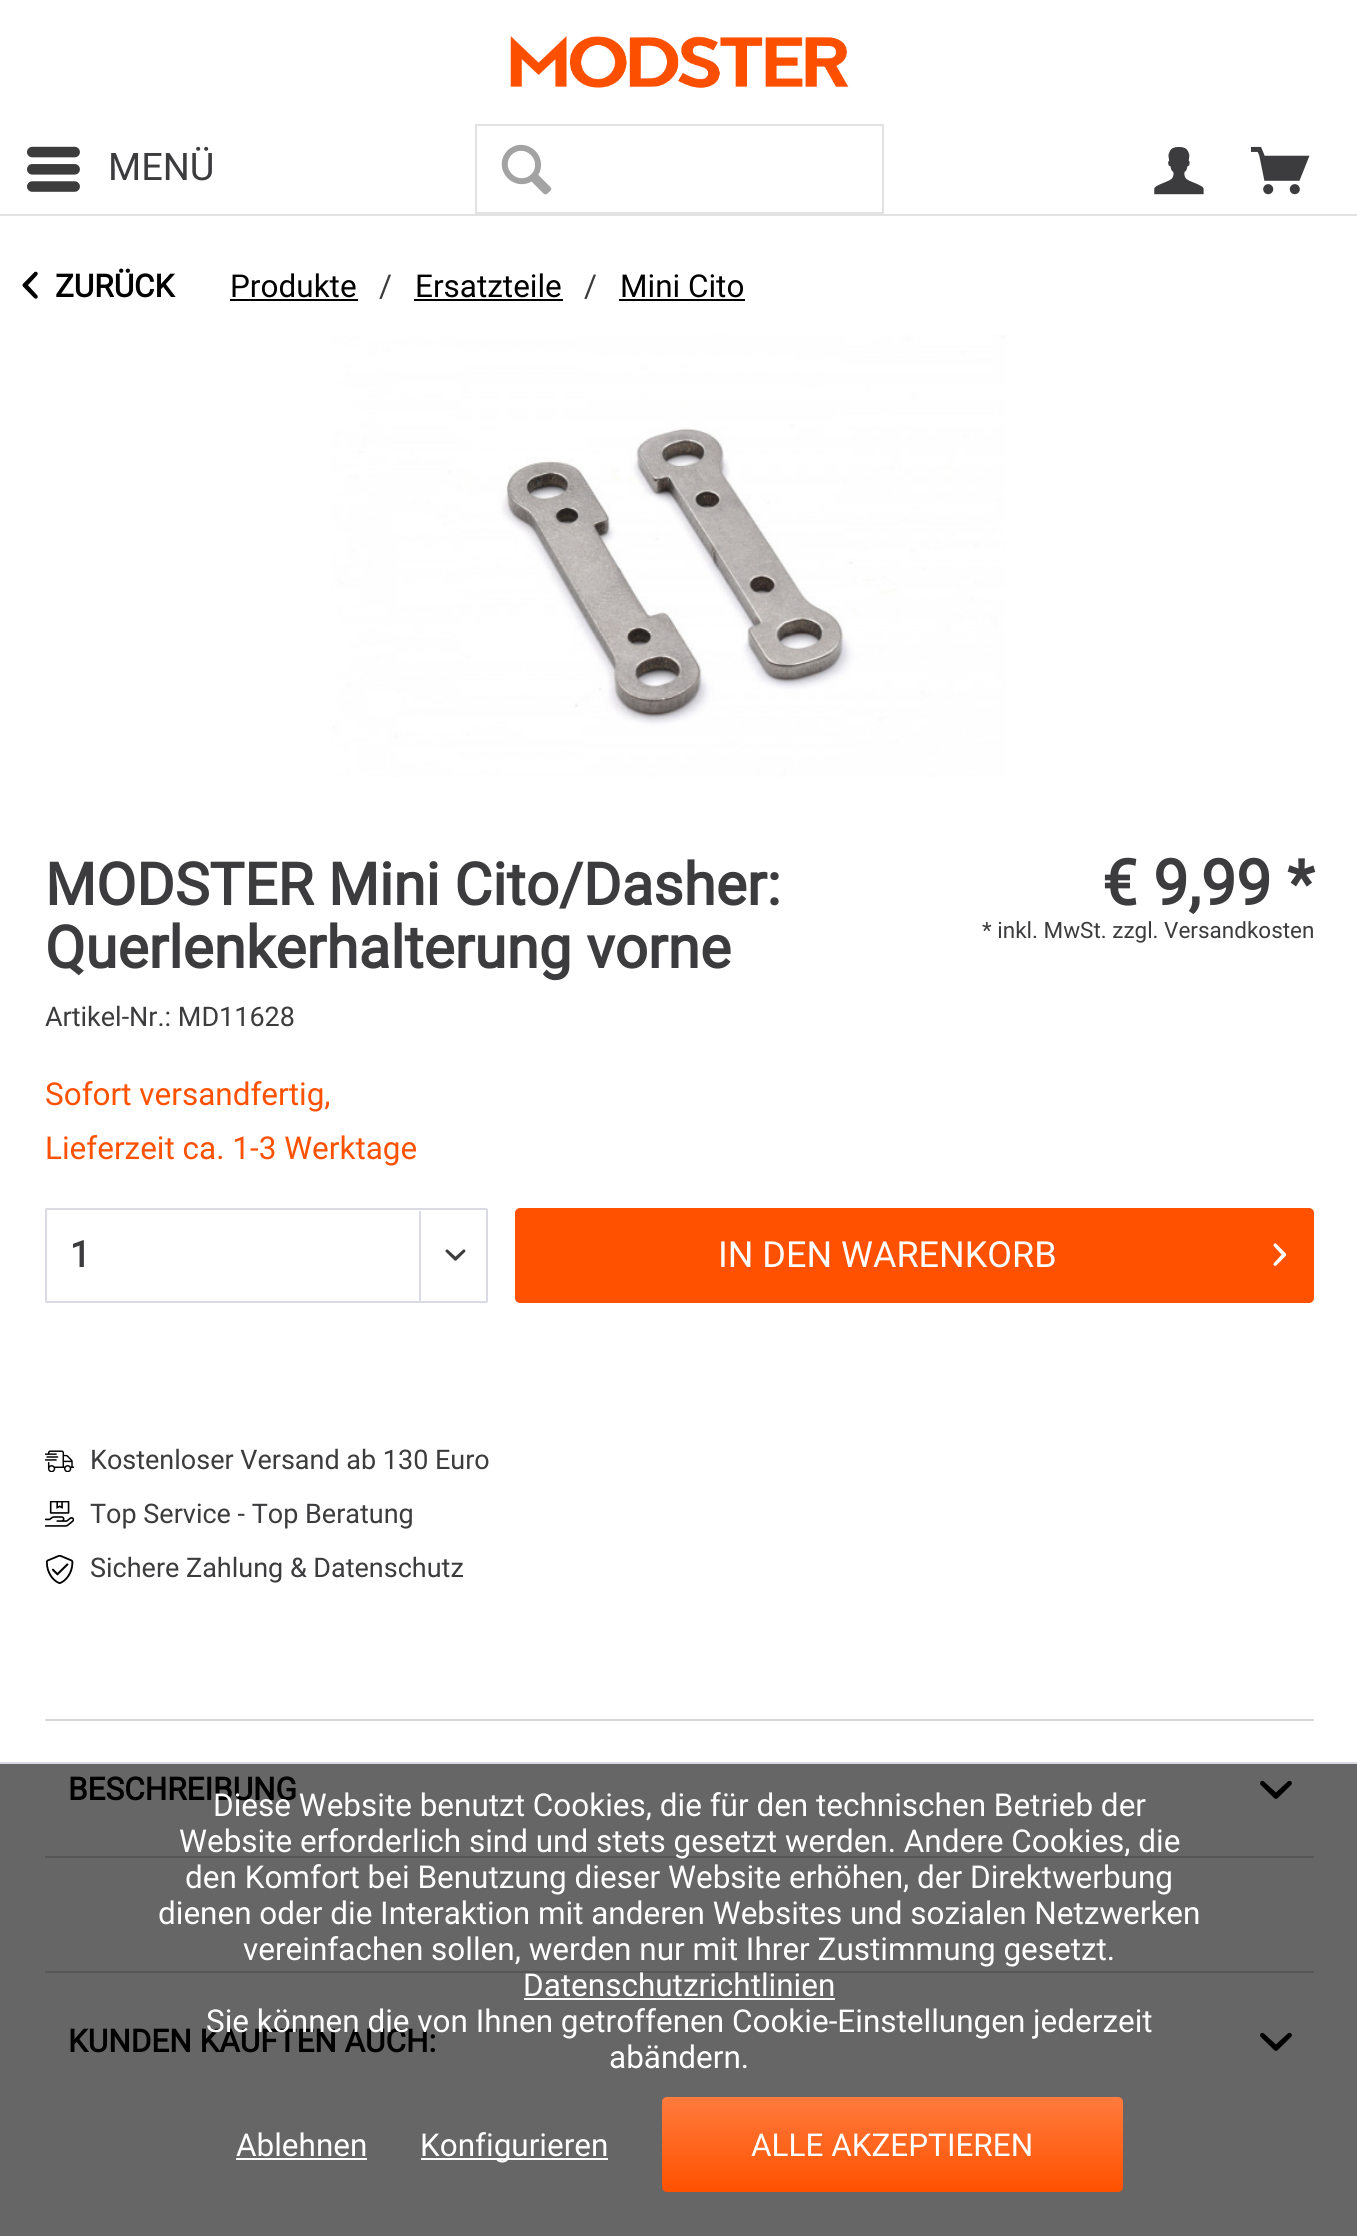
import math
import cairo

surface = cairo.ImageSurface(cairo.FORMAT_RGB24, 1357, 2236)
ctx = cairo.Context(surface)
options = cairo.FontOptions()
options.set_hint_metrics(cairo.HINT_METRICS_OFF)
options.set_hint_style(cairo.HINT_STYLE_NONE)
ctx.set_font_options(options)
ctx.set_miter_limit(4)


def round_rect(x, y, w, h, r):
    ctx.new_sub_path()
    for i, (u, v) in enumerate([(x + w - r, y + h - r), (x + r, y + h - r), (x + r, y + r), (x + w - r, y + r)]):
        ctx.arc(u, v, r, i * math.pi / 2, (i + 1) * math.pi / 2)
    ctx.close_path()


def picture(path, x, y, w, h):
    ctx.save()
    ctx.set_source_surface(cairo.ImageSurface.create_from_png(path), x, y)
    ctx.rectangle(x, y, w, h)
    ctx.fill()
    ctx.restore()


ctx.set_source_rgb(1, 1, 1)
ctx.paint()
ctx.set_source_rgb(0.4, 0.4, 0.4)
ctx.rectangle(0, 1764, 1357, 472)
ctx.fill()
picture("img1.png", 510, 36, 339, 52)
picture("img2.png", 27, 146, 53, 46)
ctx.select_font_face("Roboto")
ctx.set_font_size(38)
ctx.set_source_rgb(0.235, 0.235, 0.243)
ctx.move_to(108, 180)
ctx.show_text("MENÜ")
ctx.rectangle(476, 125, 407, 88)
ctx.set_source_rgb(0.886, 0.886, 0.886)
ctx.stroke()
picture("img3.png", 501, 144, 51, 51)
picture("img4.png", 1154, 147, 50, 48)
picture("img5.png", 1251, 146, 59, 49)
ctx.rectangle(0, 214, 1357, 2)
ctx.fill()
picture("img6.png", 22, 271, 16, 28)
ctx.select_font_face("Roboto", cairo.FONT_SLANT_NORMAL, cairo.FONT_WEIGHT_BOLD)
ctx.set_font_size(31.5)
ctx.set_source_rgb(0, 0, 0)
ctx.move_to(55, 297)
ctx.show_text("ZURÜCK")
ctx.select_font_face("Roboto")
ctx.move_to(230, 297)
ctx.show_text("Produkte")
ctx.rectangle(230, 299, 128, 2)
ctx.fill()
ctx.set_source_rgb(0.235, 0.235, 0.243)
ctx.move_to(379, 297)
ctx.show_text("/")
ctx.set_source_rgb(0, 0, 0)
ctx.move_to(415, 297)
ctx.show_text("Ersatzteile")
ctx.rectangle(414, 299, 149, 2)
ctx.fill()
ctx.set_source_rgb(0.235, 0.235, 0.243)
ctx.move_to(584, 297)
ctx.show_text("/")
ctx.set_source_rgb(0, 0, 0)
ctx.move_to(620, 297)
ctx.show_text("Mini Cito")
ctx.rectangle(619, 299, 126, 2)
ctx.fill()
picture("img7.png", 332, 335, 673, 442)
ctx.select_font_face("Roboto", cairo.FONT_SLANT_NORMAL, cairo.FONT_WEIGHT_BOLD)
ctx.set_font_size(63)
ctx.set_source_rgb(0.235, 0.235, 0.243)
ctx.move_to(1102, 905)
ctx.show_text("€ 9,99 *")
ctx.select_font_face("Roboto")
ctx.set_font_size(22.5)
ctx.move_to(982, 938)
ctx.show_text("* inkl. MwSt. zzgl. Versandkosten")
round_rect(46, 1209, 441, 93, 1)
ctx.set_source_rgb(0.855, 0.855, 0.898)
ctx.stroke()
ctx.select_font_face("Roboto", cairo.FONT_SLANT_NORMAL, cairo.FONT_WEIGHT_BOLD)
ctx.set_font_size(36)
ctx.set_source_rgb(0.235, 0.235, 0.243)
ctx.move_to(70, 1267)
ctx.show_text("1")
ctx.set_source_rgb(0.855, 0.855, 0.898)
ctx.rectangle(419, 1211, 2, 90)
ctx.fill()
picture("img8.png", 445, 1249, 21, 12)
ctx.set_source_rgb(1, 0.318, 0)
round_rect(515, 1208, 799, 95, 5)
ctx.fill()
ctx.select_font_face("Roboto")
ctx.set_source_rgb(1, 1, 1)
ctx.move_to(718, 1267)
ctx.show_text("IN DEN WARENKORB")
picture("img9.png", 1273, 1243, 14, 23)
ctx.select_font_face("Roboto", cairo.FONT_SLANT_NORMAL, cairo.FONT_WEIGHT_BOLD)
ctx.set_font_size(58.5)
ctx.set_source_rgb(0.235, 0.235, 0.243)
ctx.move_to(45, 905)
ctx.show_text("MODSTER Mini Cito/Dasher:")
ctx.move_to(45, 968)
ctx.show_text("Querlenkerhalterung vorne")
ctx.select_font_face("Roboto")
ctx.set_font_size(27)
ctx.move_to(45, 1026)
ctx.show_text("Artikel-Nr.: MD11628")
ctx.set_font_size(31.5)
ctx.set_source_rgb(1, 0.318, 0)
ctx.move_to(45, 1105)
ctx.show_text("Sofort versandfertig,")
ctx.move_to(45, 1159)
ctx.show_text("Lieferzeit ca. 1-3 Werktage")
picture("img10.png", 45, 1450, 29, 22)
ctx.set_font_size(27)
ctx.set_source_rgb(0.235, 0.235, 0.243)
ctx.move_to(90, 1469)
ctx.show_text("Kostenloser Versand ab 130 Euro")
picture("img11.png", 45, 1501, 29, 26)
ctx.move_to(90, 1523)
ctx.show_text("Top Service - Top Beratung")
picture("img12.png", 45, 1555, 29, 29)
ctx.move_to(90, 1577)
ctx.show_text("Sichere Zahlung & Datenschutz")
ctx.set_source_rgb(0.843, 0.843, 0.843)
ctx.rectangle(45, 1719, 1269, 2)
ctx.fill()
ctx.set_source_rgb(0.337, 0.337, 0.337)
ctx.rectangle(45, 1856, 1269, 2)
ctx.fill()
ctx.select_font_face("Roboto", cairo.FONT_SLANT_NORMAL, cairo.FONT_WEIGHT_BOLD)
ctx.set_font_size(31.5)
ctx.set_source_rgb(0, 0, 0)
ctx.move_to(68, 1800)
ctx.show_text("BESCHREIBUNG")
picture("img13.png", 1260, 1780, 32, 19)
ctx.set_source_rgb(0.337, 0.337, 0.337)
ctx.rectangle(45, 1971, 1269, 2)
ctx.fill()
ctx.set_source_rgb(0, 0, 0)
ctx.move_to(68, 2052)
ctx.show_text("KUNDEN KAUFTEN AUCH:")
picture("img13.png", 1260, 2032, 32, 19)
ctx.set_source_rgb(0.855, 0.855, 0.898)
ctx.rectangle(0, 1762, 1357, 2)
ctx.fill()
ctx.select_font_face("Roboto")
ctx.set_source_rgb(1, 1, 1)
ctx.move_to(213, 1816)
ctx.show_text("Diese Website benutzt Cookies, die für den technischen Betrieb der")
ctx.move_to(179, 1852)
ctx.show_text("Website erforderlich sind und stets gesetzt werden. Andere Cookies, die")
ctx.move_to(185, 1888)
ctx.show_text("den Komfort bei Benutzung dieser Website erhöhen, der Direktwerbung")
ctx.move_to(158, 1924)
ctx.show_text("dienen oder die Interaktion mit anderen Websites und sozialen Netzwerken")
ctx.move_to(243, 1960)
ctx.show_text("vereinfachen sollen, werden nur mit Ihrer Zustimmung gesetzt.")
ctx.move_to(523, 1996)
ctx.show_text("Datenschutzrichtlinien")
ctx.rectangle(524, 1998, 311, 2)
ctx.fill()
ctx.move_to(206, 2032)
ctx.show_text("Sie können die von Ihnen getroffenen Cookie-Einstellungen jederzeit")
ctx.move_to(609, 2068)
ctx.show_text("abändern.")
ctx.move_to(236, 2156)
ctx.show_text("Ablehnen")
ctx.rectangle(236, 2158, 131, 2)
ctx.fill()
ctx.rectangle(421, 2158, 187, 2)
ctx.fill()
ctx.move_to(420, 2156)
ctx.show_text("Konfigurieren")
gradient = cairo.LinearGradient(892, 2097, 892, 2192)
gradient.add_color_stop_rgba(0, 1, 0.482, 0.239, 1)
gradient.add_color_stop_rgba(1, 1, 0.318, 0, 1)
ctx.set_source(gradient)
round_rect(662, 2097, 461, 95, 5)
ctx.fill()
ctx.set_source_rgb(1, 1, 1)
ctx.move_to(751, 2156)
ctx.show_text("ALLE AKZEPTIEREN")
surface.write_to_png("page.png")
